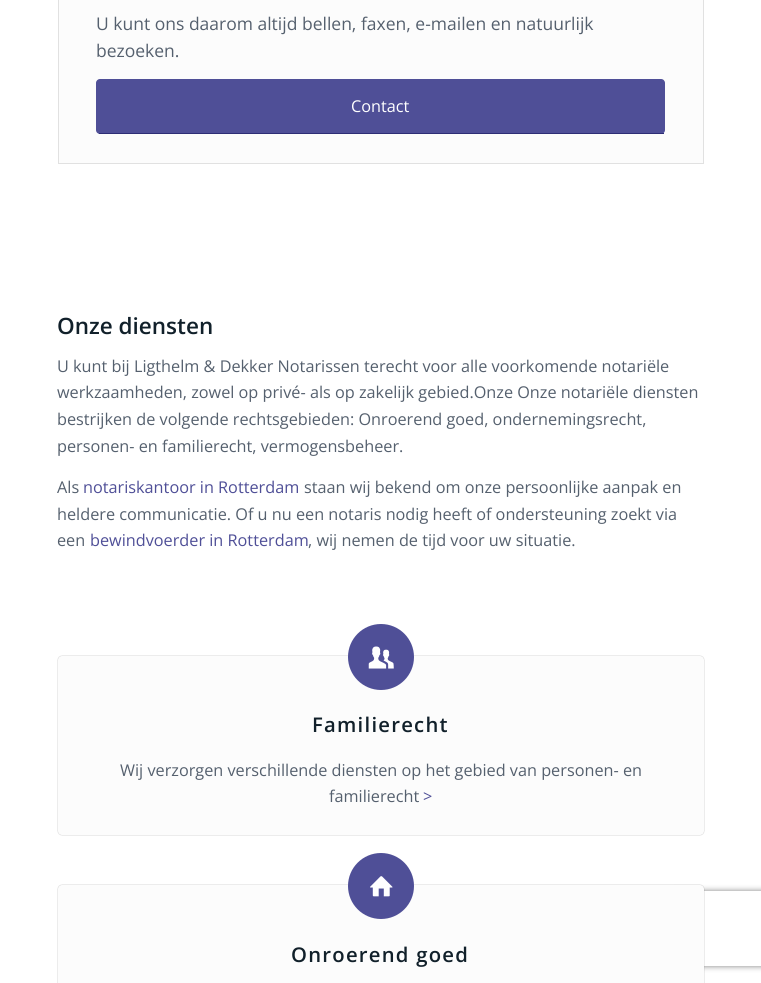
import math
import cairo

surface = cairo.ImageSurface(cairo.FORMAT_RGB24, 761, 983)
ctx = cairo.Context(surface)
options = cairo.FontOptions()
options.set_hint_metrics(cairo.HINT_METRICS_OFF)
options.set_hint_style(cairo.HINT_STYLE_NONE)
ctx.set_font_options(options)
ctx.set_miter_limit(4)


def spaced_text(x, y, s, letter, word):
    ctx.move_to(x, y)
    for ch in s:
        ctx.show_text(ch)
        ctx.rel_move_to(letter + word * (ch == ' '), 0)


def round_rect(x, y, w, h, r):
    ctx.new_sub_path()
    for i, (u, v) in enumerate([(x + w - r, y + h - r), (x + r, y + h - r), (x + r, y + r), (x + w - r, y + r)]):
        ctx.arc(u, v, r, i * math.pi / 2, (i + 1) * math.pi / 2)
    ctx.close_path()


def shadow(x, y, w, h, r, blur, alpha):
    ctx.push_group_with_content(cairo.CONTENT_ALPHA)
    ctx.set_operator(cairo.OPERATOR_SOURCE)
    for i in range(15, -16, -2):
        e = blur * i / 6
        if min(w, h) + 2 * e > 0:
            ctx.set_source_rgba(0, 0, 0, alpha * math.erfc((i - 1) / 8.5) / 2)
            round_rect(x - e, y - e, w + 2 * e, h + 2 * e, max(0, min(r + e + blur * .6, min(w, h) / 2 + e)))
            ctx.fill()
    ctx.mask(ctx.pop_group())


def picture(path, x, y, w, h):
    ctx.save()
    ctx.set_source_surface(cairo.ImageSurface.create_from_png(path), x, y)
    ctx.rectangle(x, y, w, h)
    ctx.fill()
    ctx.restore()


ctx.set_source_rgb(1, 1, 1)
ctx.paint()
ctx.set_source_rgb(0.988, 0.988, 0.988)
ctx.rectangle(58.5, -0.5, 645, 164)
ctx.fill_preserve()
ctx.set_source_rgb(0.882, 0.882, 0.882)
ctx.set_line_width(1)
ctx.stroke()
ctx.select_font_face("Open Sans")
ctx.set_font_size(17.5)
ctx.set_source_rgb(0.333, 0.376, 0.431)
ctx.move_to(96, 30)
ctx.show_text("U kunt ons daarom altijd bellen, faxen, e-mailen en natuurlijk")
ctx.move_to(96, 57)
ctx.show_text("bezoeken.")
ctx.set_source_rgb(0.31, 0.31, 0.592)
round_rect(96, 79, 569, 55, 4)
ctx.fill()
ctx.set_source_rgb(0.176, 0.176, 0.459)
ctx.rectangle(99, 133, 565, 1)
ctx.fill()
ctx.set_font_size(16.25)
ctx.set_source_rgb(1, 1, 1)
ctx.move_to(351, 112)
ctx.show_text("Contact")
ctx.select_font_face("Open Sans SemiBold")
ctx.set_font_size(22.5)
ctx.set_source_rgb(0.067, 0.125, 0.165)
ctx.move_to(57, 334)
ctx.show_text("Onze diensten")
ctx.select_font_face("Open Sans")
ctx.set_font_size(16.25)
ctx.set_source_rgb(0.333, 0.376, 0.431)
ctx.move_to(57, 372)
ctx.show_text("U kunt bij Ligthelm & Dekker Notarissen terecht voor alle voorkomende notariële")
ctx.move_to(57, 398)
ctx.show_text("werkzaamheden, zowel op privé- als op zakelijk gebied.Onze Onze notariële diensten")
ctx.move_to(57, 425)
ctx.show_text("bestrijken de volgende rechtsgebieden: Onroerend goed, ondernemingsrecht,")
ctx.move_to(57, 452)
ctx.show_text("personen- en familierecht, vermogensbeheer.")
ctx.move_to(57, 493)
ctx.show_text("Als")
ctx.set_source_rgb(0.31, 0.31, 0.592)
ctx.move_to(83, 493)
ctx.show_text("notariskantoor in Rotterdam")
ctx.set_source_rgb(0.333, 0.376, 0.431)
ctx.move_to(304, 493)
ctx.show_text("staan wij bekend om onze persoonlijke aanpak en")
ctx.move_to(57, 520)
ctx.show_text("heldere communicatie. Of u nu een notaris nodig heeft of ondersteuning zoekt via")
ctx.move_to(57, 546)
ctx.show_text("een")
ctx.set_source_rgb(0.31, 0.31, 0.592)
ctx.move_to(90, 546)
ctx.show_text("bewindvoerder in Rotterdam")
ctx.set_source_rgb(0.333, 0.376, 0.431)
ctx.move_to(308, 546)
ctx.show_text(", wij nemen de tijd voor uw situatie.")
ctx.set_source_rgb(0, 0, 0)
shadow(58, 656, 646, 179, 4, 0.5, 0.3)
ctx.set_source_rgb(0.988, 0.988, 0.988)
round_rect(58, 656, 646, 179, 4)
ctx.fill()
ctx.set_source_rgb(0.31, 0.31, 0.592)
ctx.arc(381, 657, 33, 0, 2 * math.pi)
ctx.fill()
picture("img1.png", 368, 646, 26, 23)
ctx.select_font_face("Open Sans SemiBold")
ctx.set_font_size(20.25)
ctx.set_source_rgb(0.067, 0.125, 0.165)
spaced_text(312, 732, "Familierecht", 1.25, 0)
ctx.select_font_face("Open Sans")
ctx.set_font_size(16.25)
ctx.set_source_rgb(0.333, 0.376, 0.431)
ctx.move_to(120, 776)
ctx.show_text("Wij verzorgen verschillende diensten op het gebied van personen- en")
ctx.move_to(329, 802)
ctx.show_text("familierecht")
ctx.set_source_rgb(0.31, 0.31, 0.592)
ctx.move_to(423, 802)
ctx.show_text(">")
ctx.set_source_rgb(0, 0, 0)
shadow(58, 885, 646, 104, 4, 0.5, 0.3)
ctx.save()
ctx.set_fill_rule(cairo.FILL_RULE_EVEN_ODD)
ctx.new_path()
ctx.move_to(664, 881)
ctx.line_to(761, 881)
ctx.line_to(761, 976)
ctx.line_to(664, 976)
ctx.close_path()
ctx.move_to(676.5, 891)
ctx.line_to(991.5, 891)
ctx.curve_to(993, 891, 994, 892, 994, 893.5)
ctx.line_to(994, 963.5)
ctx.curve_to(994, 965, 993, 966, 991.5, 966)
ctx.line_to(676.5, 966)
ctx.curve_to(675, 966, 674, 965, 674, 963.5)
ctx.line_to(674, 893.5)
ctx.curve_to(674, 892, 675, 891, 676.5, 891)
ctx.close_path()
ctx.clip()
ctx.set_source_rgb(0.502, 0.502, 0.502)
shadow(674, 891, 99, 75, 2.5, 3, 1)
ctx.restore()
ctx.set_source_rgb(0.988, 0.988, 0.988)
round_rect(58, 885, 646, 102, 4)
ctx.fill()
ctx.set_source_rgb(0.31, 0.31, 0.592)
ctx.arc(381, 886, 33, 0, 2 * math.pi)
ctx.fill()
picture("img2.png", 370, 876, 23, 21)
ctx.select_font_face("Open Sans SemiBold")
ctx.set_font_size(20.25)
ctx.set_source_rgb(0.067, 0.125, 0.165)
spaced_text(291, 962, "Onroerend goed", 1.25, 0)
surface.write_to_png("page.png")
